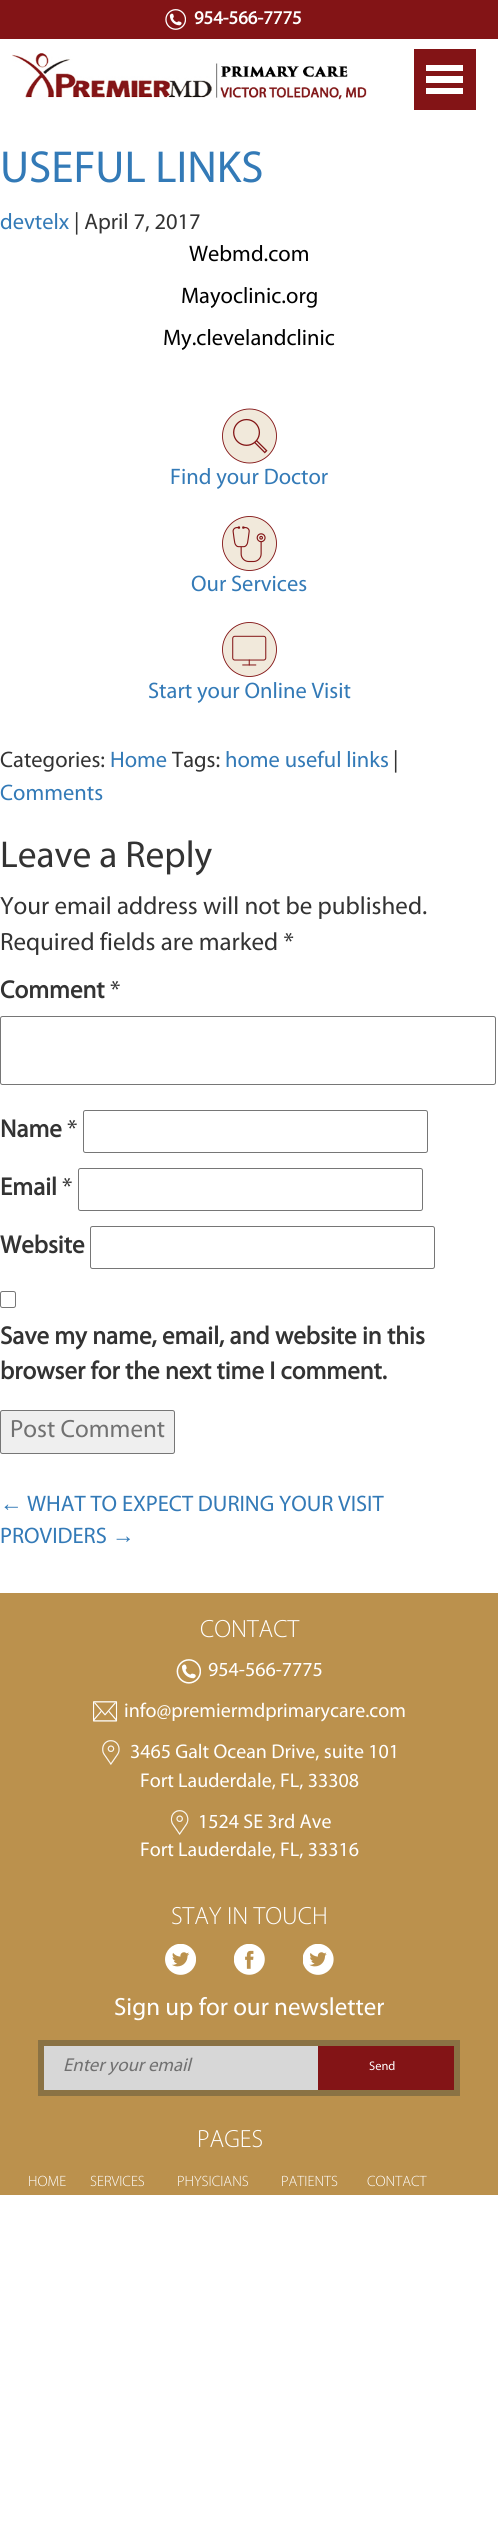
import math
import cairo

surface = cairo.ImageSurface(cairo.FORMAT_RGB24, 498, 2544)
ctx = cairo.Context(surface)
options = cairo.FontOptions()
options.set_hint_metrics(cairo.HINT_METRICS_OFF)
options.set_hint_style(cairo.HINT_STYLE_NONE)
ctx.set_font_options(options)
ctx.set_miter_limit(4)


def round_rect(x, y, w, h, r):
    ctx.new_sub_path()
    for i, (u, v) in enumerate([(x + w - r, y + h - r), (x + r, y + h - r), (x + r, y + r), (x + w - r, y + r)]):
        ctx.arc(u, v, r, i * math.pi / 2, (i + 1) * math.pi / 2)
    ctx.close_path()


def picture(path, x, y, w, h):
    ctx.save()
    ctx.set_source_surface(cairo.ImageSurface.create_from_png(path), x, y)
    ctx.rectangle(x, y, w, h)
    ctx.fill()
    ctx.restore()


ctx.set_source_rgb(1, 1, 1)
ctx.paint()
ctx.set_source_rgb(0.514, 0.082, 0.086)
ctx.rectangle(0, 0, 498, 39)
ctx.fill()
picture("img1.png", 165, 9, 21, 21)
ctx.select_font_face("Myriad", cairo.FONT_SLANT_NORMAL, cairo.FONT_WEIGHT_BOLD)
ctx.set_font_size(18.75)
ctx.set_source_rgb(1, 1, 1)
ctx.move_to(194, 24)
ctx.show_text("954-566-7775")
picture("img2.png", 12, 53, 355, 47)
ctx.set_source_rgb(0.514, 0.082, 0.086)
ctx.rectangle(414, 49, 62, 61)
ctx.fill()
ctx.set_source_rgb(1, 1, 1)
ctx.rectangle(426, 65, 37, 6)
ctx.fill()
ctx.rectangle(426, 76, 37, 7)
ctx.fill()
ctx.rectangle(426, 88, 37, 6)
ctx.fill()
ctx.select_font_face("Myriad")
ctx.set_font_size(45)
ctx.set_source_rgb(0.2, 0.478, 0.718)
ctx.move_to(0, 182)
ctx.show_text("USEFUL LINKS")
ctx.set_font_size(22.5)
ctx.move_to(0, 229)
ctx.show_text("devtelx")
ctx.set_source_rgb(0.2, 0.2, 0.2)
ctx.move_to(74, 229)
ctx.show_text("| April 7, 2017")
ctx.set_source_rgb(0, 0, 0)
ctx.move_to(189, 261)
ctx.show_text("Webmd.com")
ctx.move_to(181, 303)
ctx.show_text("Mayoclinic.org")
ctx.move_to(163, 345)
ctx.show_text("My.clevelandclinic")
picture("img3.png", 222, 408, 55, 56)
ctx.set_source_rgb(0.2, 0.478, 0.718)
ctx.move_to(170, 484)
ctx.show_text("Find your Doctor")
picture("img4.png", 222, 516, 55, 55)
ctx.move_to(191, 591)
ctx.show_text("Our Services")
picture("img5.png", 222, 622, 55, 55)
ctx.move_to(148, 698)
ctx.show_text("Start your Online Visit")
ctx.set_source_rgb(0.2, 0.2, 0.2)
ctx.move_to(0, 767)
ctx.show_text("Categories:")
ctx.set_source_rgb(0.2, 0.478, 0.718)
ctx.move_to(110, 767)
ctx.show_text("Home")
ctx.set_source_rgb(0.2, 0.2, 0.2)
ctx.move_to(172, 767)
ctx.show_text("Tags:")
ctx.set_source_rgb(0.2, 0.478, 0.718)
ctx.move_to(225, 767)
ctx.show_text("home useful links")
ctx.set_source_rgb(0.2, 0.2, 0.2)
ctx.move_to(393, 767)
ctx.show_text("|")
ctx.set_source_rgb(0.2, 0.478, 0.718)
ctx.move_to(0, 800)
ctx.show_text("Comments")
ctx.set_font_size(37.5)
ctx.set_source_rgb(0.2, 0.2, 0.2)
ctx.move_to(0, 867)
ctx.show_text("Leave a Reply")
ctx.set_font_size(25)
ctx.move_to(0, 914)
ctx.show_text("Your email address will not be published.")
ctx.move_to(0, 950)
ctx.show_text("Required fields are marked *")
ctx.select_font_face("Myriad", cairo.FONT_SLANT_NORMAL, cairo.FONT_WEIGHT_BOLD)
ctx.move_to(0, 998)
ctx.show_text("Comment")
ctx.select_font_face("Myriad")
ctx.move_to(110, 998)
ctx.show_text("*")
round_rect(0.5, 1016.5, 495, 68, 2)
ctx.set_source_rgb(0.463, 0.463, 0.463)
ctx.set_line_width(1)
ctx.stroke()
ctx.select_font_face("Myriad", cairo.FONT_SLANT_NORMAL, cairo.FONT_WEIGHT_BOLD)
ctx.set_source_rgb(0.2, 0.2, 0.2)
ctx.move_to(0, 1137)
ctx.show_text("Name")
ctx.select_font_face("Myriad")
ctx.move_to(67, 1137)
ctx.show_text("*")
round_rect(83.5, 1110.5, 344, 42, 2)
ctx.set_source_rgb(0.463, 0.463, 0.463)
ctx.stroke()
ctx.select_font_face("Myriad", cairo.FONT_SLANT_NORMAL, cairo.FONT_WEIGHT_BOLD)
ctx.set_source_rgb(0.2, 0.2, 0.2)
ctx.move_to(0, 1195)
ctx.show_text("Email")
ctx.select_font_face("Myriad")
ctx.move_to(62, 1195)
ctx.show_text("*")
round_rect(78.5, 1168.5, 344, 42, 2)
ctx.set_source_rgb(0.463, 0.463, 0.463)
ctx.stroke()
ctx.select_font_face("Myriad", cairo.FONT_SLANT_NORMAL, cairo.FONT_WEIGHT_BOLD)
ctx.set_source_rgb(0.2, 0.2, 0.2)
ctx.move_to(0, 1253)
ctx.show_text("Website")
round_rect(90.5, 1226.5, 344, 42, 2)
ctx.set_source_rgb(0.463, 0.463, 0.463)
ctx.stroke()
round_rect(0.5, 1291.5, 15, 16, 2)
ctx.stroke()
ctx.set_source_rgb(0.2, 0.2, 0.2)
ctx.move_to(0, 1344)
ctx.show_text("Save my name, email, and website in this")
ctx.move_to(0, 1379)
ctx.show_text("browser for the next time I comment.")
ctx.set_source_rgb(0.937, 0.937, 0.937)
round_rect(0.5, 1410.5, 174, 43, 2)
ctx.fill_preserve()
ctx.set_source_rgb(0.463, 0.463, 0.463)
ctx.stroke()
ctx.select_font_face("Myriad")
ctx.set_source_rgb(0.443, 0.443, 0.443)
ctx.move_to(10, 1437)
ctx.show_text("Post Comment")
ctx.select_font_face("Liberation Serif")
ctx.set_font_size(22.5)
ctx.set_source_rgb(0.2, 0.478, 0.718)
ctx.move_to(0, 1511)
ctx.show_text("←")
ctx.select_font_face("Myriad")
ctx.move_to(27, 1511)
ctx.show_text("WHAT TO EXPECT DURING YOUR VISIT")
ctx.move_to(0, 1543)
ctx.show_text("PROVIDERS")
ctx.select_font_face("Liberation Serif")
ctx.move_to(112, 1543)
ctx.show_text("→")
ctx.set_source_rgb(0.733, 0.569, 0.302)
ctx.rectangle(0, 1593, 498, 602)
ctx.fill()
ctx.select_font_face("Myriad Light")
ctx.set_font_size(25)
ctx.set_source_rgb(1, 1, 1)
ctx.move_to(200, 1637)
ctx.show_text("CONTACT")
picture("img6.png", 176, 1659, 25, 25)
ctx.select_font_face("Myriad")
ctx.set_font_size(20)
ctx.move_to(208, 1676)
ctx.show_text("954-566-7775")
picture("img7.png", 93, 1701, 25, 21)
ctx.move_to(124, 1717)
ctx.show_text("info@premiermdprimarycare.com")
picture("img8.png", 102, 1740, 18, 25)
ctx.move_to(130, 1758)
ctx.show_text("3465 Galt Ocean Drive, suite 101")
ctx.move_to(140, 1787)
ctx.show_text("Fort Lauderdale, FL, 33308")
picture("img9.png", 170, 1810, 19, 25)
ctx.move_to(198, 1828)
ctx.show_text("1524 SE 3rd Ave")
ctx.move_to(140, 1856)
ctx.show_text("Fort Lauderdale, FL, 33316")
ctx.select_font_face("Myriad Light")
ctx.set_font_size(25)
ctx.move_to(171, 1924)
ctx.show_text("STAY IN TOUCH")
picture("img10.png", 165, 1944, 31, 31)
picture("img11.png", 234, 1944, 31, 31)
picture("img12.png", 303, 1944, 31, 31)
ctx.select_font_face("Myriad")
ctx.move_to(114, 2015)
ctx.show_text("Sign up for our newsletter")
ctx.rectangle(41, 2043, 416, 50)
ctx.set_source_rgb(0.541, 0.447, 0.267)
ctx.set_line_width(6)
ctx.stroke()
ctx.set_source_rgb(0.843, 0.843, 0.843)
ctx.rectangle(44, 2046, 274, 44)
ctx.fill()
ctx.select_font_face("Myriad", cairo.FONT_SLANT_ITALIC)
ctx.set_font_size(18.75)
ctx.set_source_rgb(0.443, 0.443, 0.443)
ctx.move_to(63, 2071)
ctx.show_text("Enter your email")
ctx.set_source_rgb(0.514, 0.082, 0.086)
ctx.rectangle(318, 2046, 136, 44)
ctx.fill()
ctx.select_font_face("Myriad")
ctx.set_font_size(12.5)
ctx.set_source_rgb(1, 1, 1)
ctx.move_to(369, 2070)
ctx.show_text("Send")
ctx.select_font_face("Myriad Light")
ctx.set_font_size(25)
ctx.move_to(197, 2147)
ctx.show_text("PAGES")
ctx.set_font_size(15)
ctx.move_to(28, 2186)
ctx.show_text("HOME")
ctx.move_to(90, 2186)
ctx.show_text("SERVICES")
ctx.move_to(177, 2186)
ctx.show_text("PHYSICIANS")
ctx.move_to(281, 2186)
ctx.show_text("PATIENTS")
ctx.move_to(367, 2186)
ctx.show_text("CONTACT")
surface.write_to_png("page.png")
